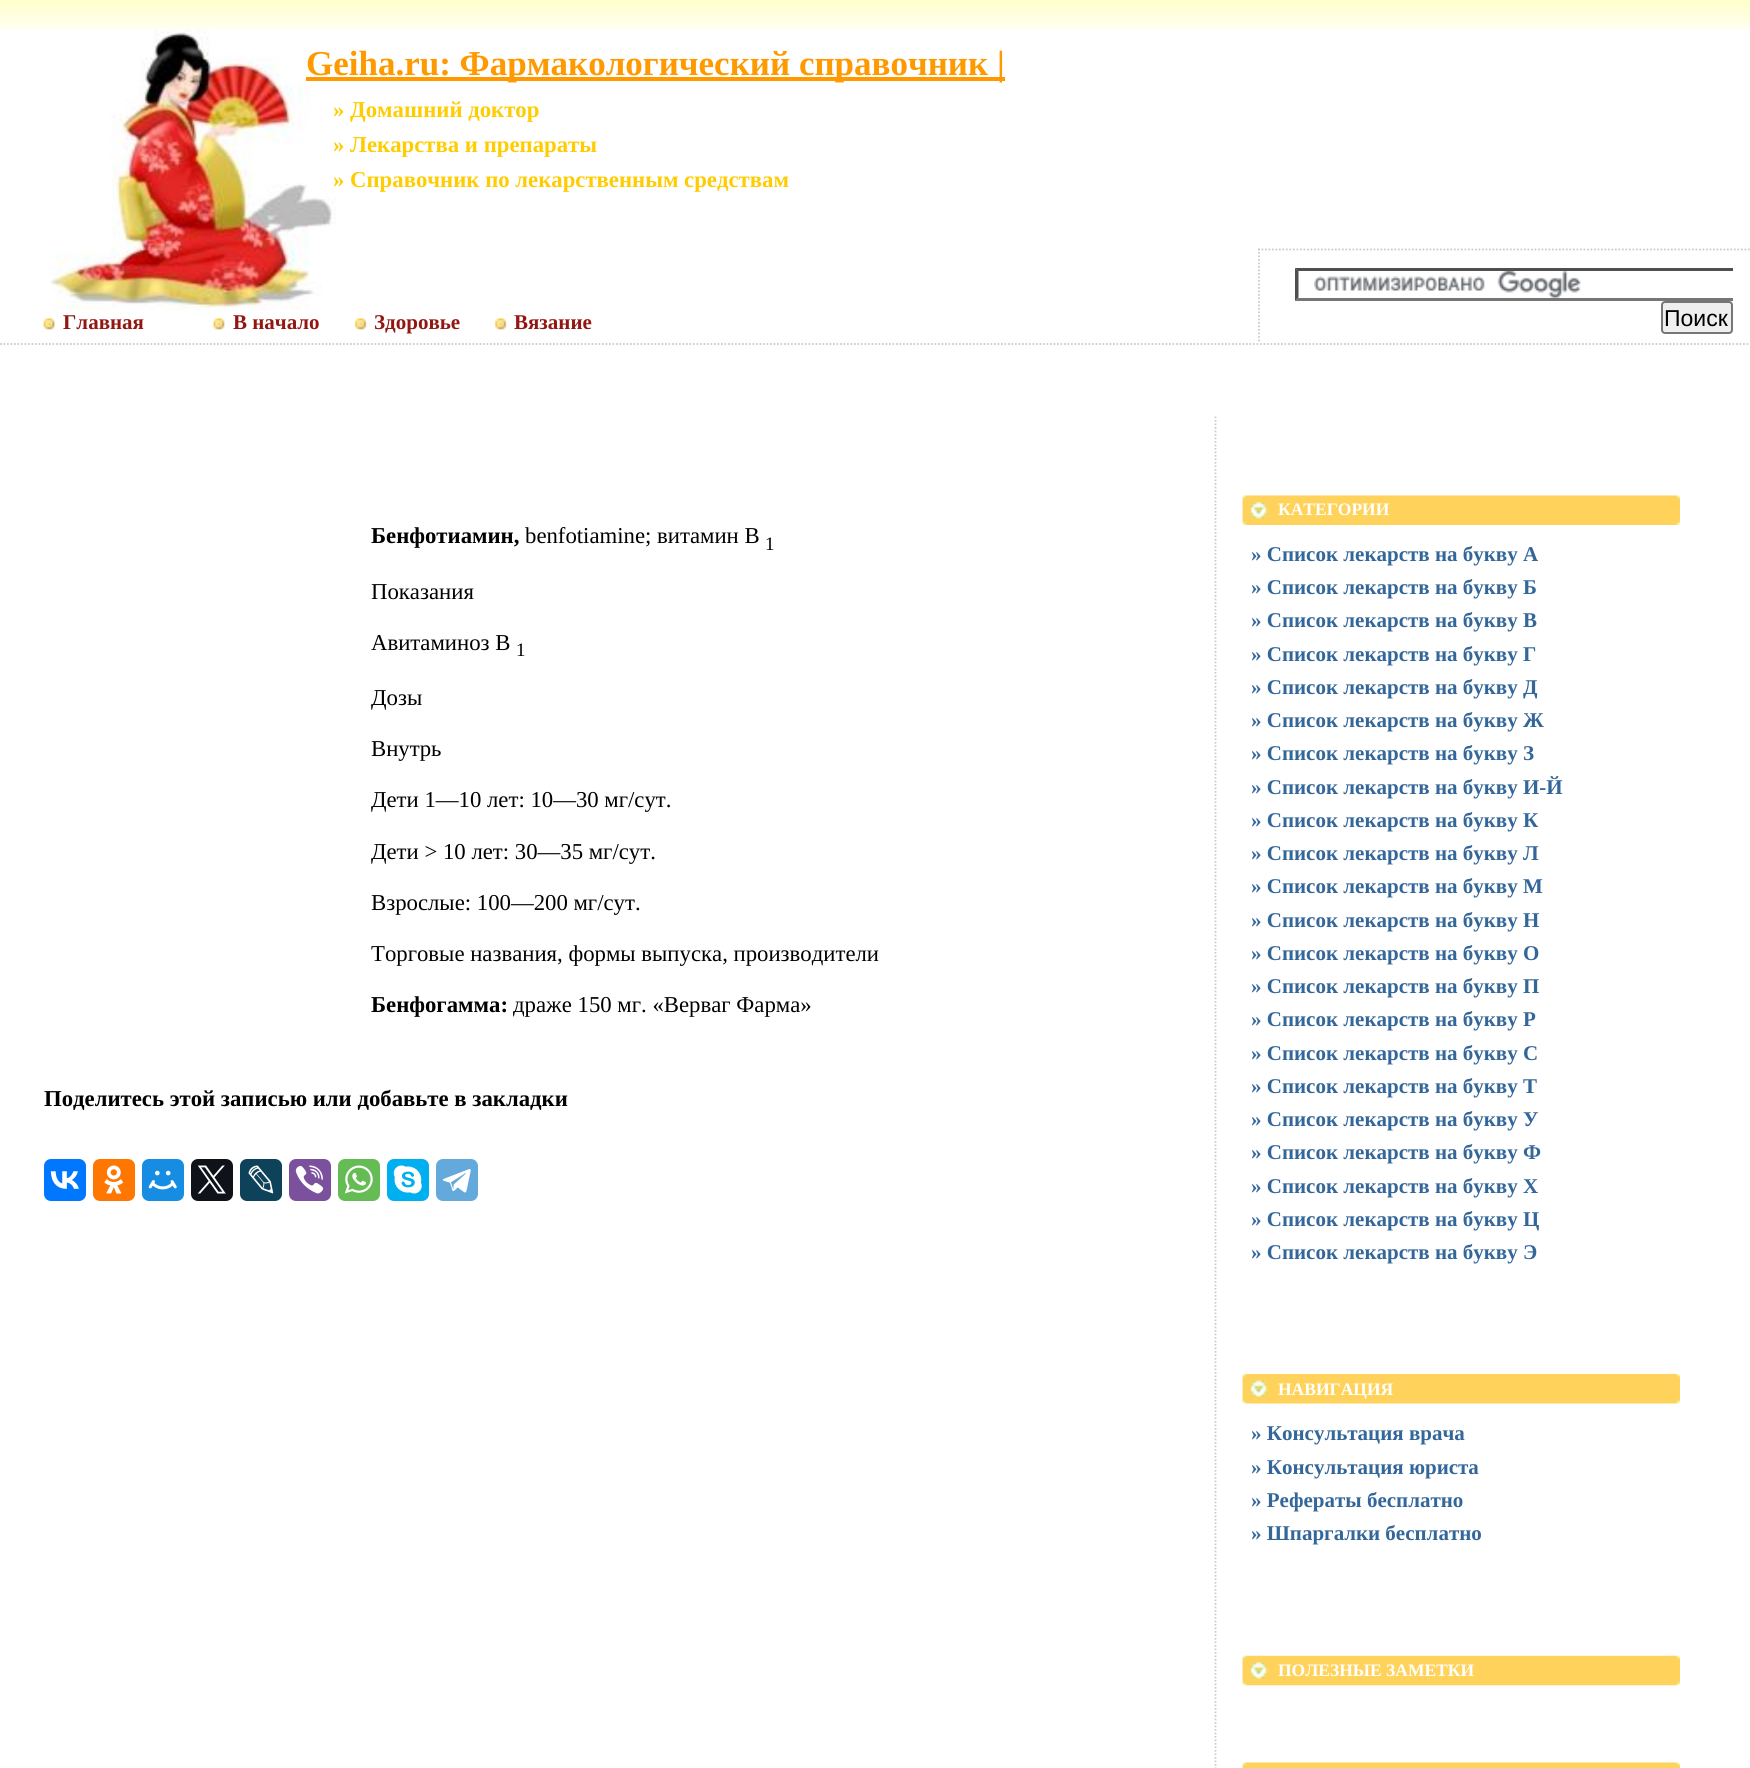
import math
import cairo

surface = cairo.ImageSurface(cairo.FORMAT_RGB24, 1750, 1768)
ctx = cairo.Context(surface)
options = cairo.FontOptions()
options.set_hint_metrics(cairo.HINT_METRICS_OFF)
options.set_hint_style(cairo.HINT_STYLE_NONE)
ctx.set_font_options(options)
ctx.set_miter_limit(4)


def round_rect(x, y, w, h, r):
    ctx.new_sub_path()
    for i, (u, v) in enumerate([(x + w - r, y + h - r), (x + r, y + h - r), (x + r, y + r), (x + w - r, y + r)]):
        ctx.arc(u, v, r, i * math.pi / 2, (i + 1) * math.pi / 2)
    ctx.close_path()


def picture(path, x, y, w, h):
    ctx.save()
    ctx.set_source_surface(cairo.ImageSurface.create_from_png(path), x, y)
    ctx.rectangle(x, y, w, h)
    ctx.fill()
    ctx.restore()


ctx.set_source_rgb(1, 1, 1)
ctx.paint()
picture("img1.png", 0, 0, 1750, 30)
picture("img2.png", 50, 30, 286, 281)
ctx.set_source_rgb(1, 0.6, 0)
ctx.rectangle(306, 77, 699, 4)
ctx.fill()
ctx.select_font_face("Liberation Serif", cairo.FONT_SLANT_NORMAL, cairo.FONT_WEIGHT_BOLD)
ctx.set_font_size(35)
ctx.move_to(306, 75)
ctx.show_text("Geiha.ru: Фармакологический справочник |")
ctx.set_font_size(22.75)
ctx.set_source_rgb(1, 0.8, 0)
ctx.move_to(333, 117)
ctx.show_text("» Домашний доктор")
ctx.move_to(333, 152)
ctx.show_text("» Лекарства и препараты")
ctx.move_to(333, 187)
ctx.show_text("» Справочник по лекарственным средствам")
ctx.new_path()
ctx.move_to(0, 344)
ctx.line_to(1750, 344)
ctx.set_source_rgb(0.8, 0.8, 0.8)
ctx.set_line_width(1.8)
ctx.set_dash([1.75, 1.75])
ctx.stroke()
picture("img3.png", 43, 318, 12, 12)
ctx.set_font_size(21)
ctx.set_source_rgb(0.573, 0.09, 0.071)
ctx.move_to(63, 329)
ctx.show_text("Главная")
picture("img4.png", 213, 318, 12, 12)
ctx.move_to(233, 329)
ctx.show_text("В начало")
picture("img5.png", 354, 318, 13, 12)
ctx.move_to(374, 329)
ctx.show_text("Здоровье")
picture("img6.png", 494, 318, 13, 12)
ctx.move_to(514, 329)
ctx.show_text("Вязание")
ctx.new_path()
ctx.move_to(1258, 249.5)
ctx.line_to(1750, 249.5)
ctx.set_source_rgb(0.8, 0.8, 0.8)
ctx.stroke()
ctx.new_path()
ctx.move_to(1259, 248.5)
ctx.line_to(1259, 343)
ctx.stroke()
picture("img7.png", 1314, 271, 267, 27)
ctx.save()
ctx.rectangle(1295, 268, 438, 66)
ctx.clip()
ctx.set_source_rgb(0.31, 0.31, 0.31)
ctx.new_path()
ctx.move_to(1295, 268)
ctx.line_to(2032, 268)
ctx.line_to(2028, 271)
ctx.line_to(1298, 271)
ctx.close_path()
ctx.fill()
ctx.set_source_rgb(0.463, 0.463, 0.463)
ctx.new_path()
ctx.move_to(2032, 301)
ctx.line_to(1295, 301)
ctx.line_to(1298, 298)
ctx.line_to(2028, 298)
ctx.close_path()
ctx.fill()
ctx.restore()
ctx.set_source_rgb(0.31, 0.31, 0.31)
ctx.new_path()
ctx.move_to(1295, 301)
ctx.line_to(1295, 268)
ctx.line_to(1298.5, 271)
ctx.line_to(1298.5, 297.5)
ctx.close_path()
ctx.fill()
ctx.set_source_rgb(0.937, 0.937, 0.937)
round_rect(1662, 302, 70, 31, 3)
ctx.fill_preserve()
ctx.set_source_rgb(0.463, 0.463, 0.463)
ctx.set_line_width(2)
ctx.set_dash([])
ctx.stroke()
ctx.select_font_face("Liberation Sans")
ctx.set_font_size(23)
ctx.set_source_rgb(0, 0, 0)
ctx.move_to(1664, 326)
ctx.show_text("Поиск")
ctx.new_path()
ctx.move_to(1215.5, 416.5)
ctx.line_to(1215.5, 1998.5)
ctx.set_source_rgb(0.8, 0.8, 0.8)
ctx.set_line_width(1.8)
ctx.set_dash([1.75, 1.75])
ctx.stroke()
ctx.select_font_face("Liberation Serif", cairo.FONT_SLANT_NORMAL, cairo.FONT_WEIGHT_BOLD)
ctx.set_font_size(22.75)
ctx.set_source_rgb(0, 0, 0)
ctx.move_to(371, 543)
ctx.show_text("Бенфотиамин,")
ctx.select_font_face("Liberation Serif")
ctx.move_to(525, 543)
ctx.show_text("benfotiamine; витамин B")
ctx.set_font_size(19)
ctx.move_to(765, 550)
ctx.show_text("1")
ctx.set_font_size(22.75)
ctx.move_to(371, 599)
ctx.show_text("Показания")
ctx.move_to(371, 650)
ctx.show_text("Авитаминоз B")
ctx.set_font_size(19)
ctx.move_to(516, 656)
ctx.show_text("1")
ctx.set_font_size(22.75)
ctx.move_to(371, 705)
ctx.show_text("Дозы")
ctx.move_to(371, 756)
ctx.show_text("Внутрь")
ctx.move_to(371, 807)
ctx.show_text("Дети 1—10 лет: 10—30 мг/сут.")
ctx.move_to(371, 859)
ctx.show_text("Дети > 10 лет: 30—35 мг/сут.")
ctx.move_to(371, 910)
ctx.show_text("Взрослые: 100—200 мг/сут.")
ctx.move_to(371, 961)
ctx.show_text("Торговые названия, формы выпуска, производители")
ctx.select_font_face("Liberation Serif", cairo.FONT_SLANT_NORMAL, cairo.FONT_WEIGHT_BOLD)
ctx.move_to(371, 1012)
ctx.show_text("Бенфогамма:")
ctx.select_font_face("Liberation Serif")
ctx.move_to(513, 1012)
ctx.show_text("драже 150 мг. «Верваг Фарма»")
ctx.select_font_face("Liberation Serif", cairo.FONT_SLANT_NORMAL, cairo.FONT_WEIGHT_BOLD)
ctx.move_to(44, 1106)
ctx.show_text("Поделитесь этой записью или добавьте в закладки")
ctx.set_source_rgb(0, 0.467, 1)
round_rect(44, 1159, 42, 42, 7)
ctx.fill()
picture("img8.png", 50, 1171, 29, 18)
ctx.set_source_rgb(1, 0.467, 0)
round_rect(93, 1159, 42, 42, 7)
ctx.fill()
picture("img9.png", 104, 1165, 20, 29)
ctx.set_source_rgb(0.086, 0.553, 0.886)
round_rect(142, 1159, 42, 42, 7)
ctx.fill()
picture("img10.png", 148, 1170, 29, 20)
ctx.set_source_rgb(0.059, 0.078, 0.098)
round_rect(191, 1159, 42, 42, 7)
ctx.fill()
picture("img11.png", 197, 1165, 29, 29)
ctx.set_source_rgb(0.051, 0.259, 0.353)
round_rect(240, 1159, 42, 42, 7)
ctx.fill()
picture("img12.png", 248, 1165, 26, 29)
ctx.set_source_rgb(0.482, 0.318, 0.616)
round_rect(289, 1159, 42, 42, 7)
ctx.fill()
picture("img13.png", 295, 1165, 29, 29)
ctx.set_source_rgb(0.396, 0.737, 0.329)
round_rect(338, 1159, 42, 42, 7)
ctx.fill()
picture("img14.png", 344, 1165, 29, 29)
ctx.set_source_rgb(0, 0.686, 0.941)
round_rect(387, 1159, 42, 42, 7)
ctx.fill()
picture("img15.png", 393, 1165, 29, 29)
ctx.set_source_rgb(0.392, 0.663, 0.863)
round_rect(436, 1159, 42, 42, 7)
ctx.fill()
picture("img16.png", 442, 1169, 29, 24)
picture("img17.png", 1242, 495, 438, 30)
ctx.set_font_size(17.5)
ctx.set_source_rgb(1, 1, 1)
ctx.move_to(1278, 515)
ctx.show_text("КАТЕГОРИИ")
ctx.set_font_size(21)
ctx.set_source_rgb(0.2, 0.4, 0.6)
ctx.move_to(1251, 561)
ctx.show_text("» Список лекарств на букву А")
ctx.move_to(1251, 594)
ctx.show_text("» Список лекарств на букву Б")
ctx.move_to(1251, 627)
ctx.show_text("» Список лекарств на букву В")
ctx.move_to(1251, 661)
ctx.show_text("» Список лекарств на букву Г")
ctx.move_to(1251, 694)
ctx.show_text("» Список лекарств на букву Д")
ctx.move_to(1251, 727)
ctx.show_text("» Список лекарств на букву Ж")
ctx.move_to(1251, 760)
ctx.show_text("» Список лекарств на букву З")
ctx.move_to(1251, 794)
ctx.show_text("» Список лекарств на букву И-Й")
ctx.move_to(1251, 827)
ctx.show_text("» Список лекарств на букву К")
ctx.move_to(1251, 860)
ctx.show_text("» Список лекарств на букву Л")
ctx.move_to(1251, 893)
ctx.show_text("» Список лекарств на букву М")
ctx.move_to(1251, 927)
ctx.show_text("» Список лекарств на букву Н")
ctx.move_to(1251, 960)
ctx.show_text("» Список лекарств на букву О")
ctx.move_to(1251, 993)
ctx.show_text("» Список лекарств на букву П")
ctx.move_to(1251, 1026)
ctx.show_text("» Список лекарств на букву Р")
ctx.move_to(1251, 1060)
ctx.show_text("» Список лекарств на букву С")
ctx.move_to(1251, 1093)
ctx.show_text("» Список лекарств на букву Т")
ctx.move_to(1251, 1126)
ctx.show_text("» Список лекарств на букву У")
ctx.move_to(1251, 1159)
ctx.show_text("» Список лекарств на букву Ф")
ctx.move_to(1251, 1193)
ctx.show_text("» Список лекарств на букву Х")
ctx.move_to(1251, 1226)
ctx.show_text("» Список лекарств на букву Ц")
ctx.move_to(1251, 1259)
ctx.show_text("» Список лекарств на букву Э")
picture("img18.png", 1242, 1373, 438, 31)
ctx.set_font_size(17.5)
ctx.set_source_rgb(1, 1, 1)
ctx.move_to(1278, 1395)
ctx.show_text("НАВИГАЦИЯ")
ctx.set_font_size(21)
ctx.set_source_rgb(0.2, 0.4, 0.6)
ctx.move_to(1251, 1440)
ctx.show_text("» Консультация врача")
ctx.move_to(1251, 1474)
ctx.show_text("» Консультация юриста")
ctx.move_to(1251, 1507)
ctx.show_text("» Рефераты бесплатно")
ctx.move_to(1251, 1540)
ctx.show_text("» Шпаргалки бесплатно")
picture("img19.png", 1242, 1655, 438, 31)
ctx.set_font_size(17.5)
ctx.set_source_rgb(1, 1, 1)
ctx.move_to(1278, 1676)
ctx.show_text("ПОЛЕЗНЫЕ ЗАМЕТКИ")
picture("img20.png", 1242, 1762, 438, 6)
surface.write_to_png("page.png")
